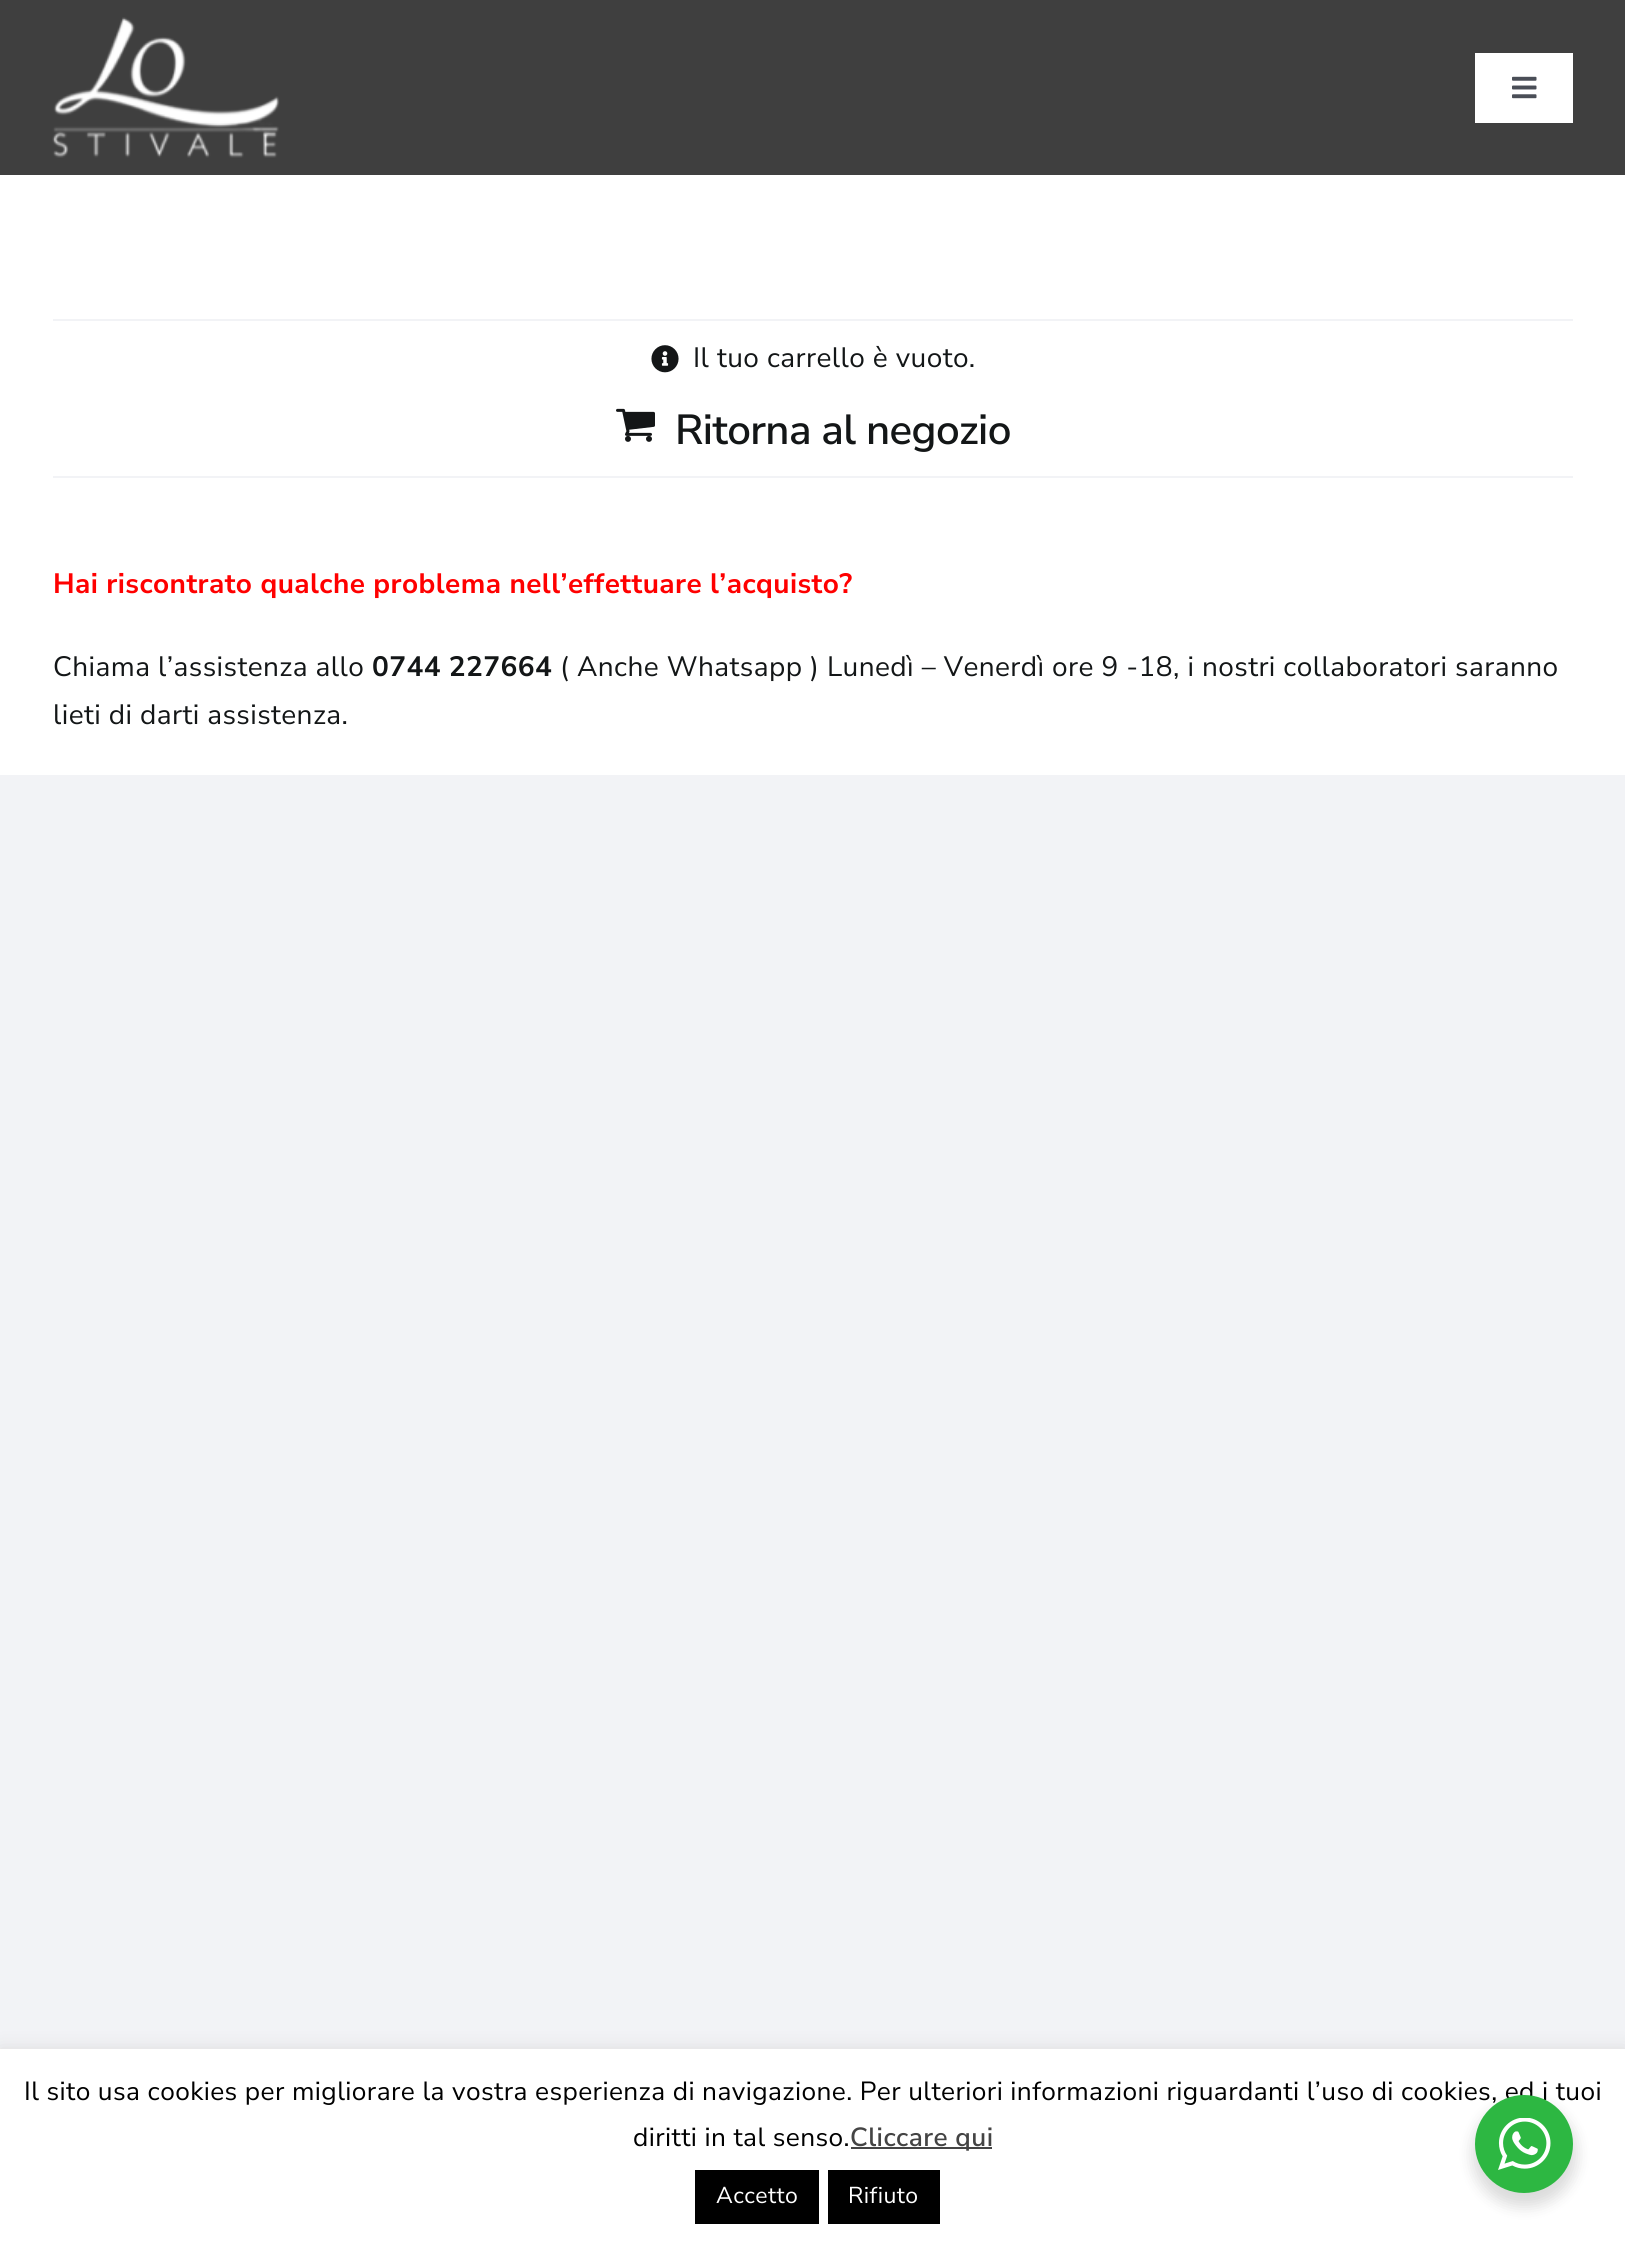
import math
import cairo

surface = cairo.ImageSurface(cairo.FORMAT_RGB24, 1625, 2245)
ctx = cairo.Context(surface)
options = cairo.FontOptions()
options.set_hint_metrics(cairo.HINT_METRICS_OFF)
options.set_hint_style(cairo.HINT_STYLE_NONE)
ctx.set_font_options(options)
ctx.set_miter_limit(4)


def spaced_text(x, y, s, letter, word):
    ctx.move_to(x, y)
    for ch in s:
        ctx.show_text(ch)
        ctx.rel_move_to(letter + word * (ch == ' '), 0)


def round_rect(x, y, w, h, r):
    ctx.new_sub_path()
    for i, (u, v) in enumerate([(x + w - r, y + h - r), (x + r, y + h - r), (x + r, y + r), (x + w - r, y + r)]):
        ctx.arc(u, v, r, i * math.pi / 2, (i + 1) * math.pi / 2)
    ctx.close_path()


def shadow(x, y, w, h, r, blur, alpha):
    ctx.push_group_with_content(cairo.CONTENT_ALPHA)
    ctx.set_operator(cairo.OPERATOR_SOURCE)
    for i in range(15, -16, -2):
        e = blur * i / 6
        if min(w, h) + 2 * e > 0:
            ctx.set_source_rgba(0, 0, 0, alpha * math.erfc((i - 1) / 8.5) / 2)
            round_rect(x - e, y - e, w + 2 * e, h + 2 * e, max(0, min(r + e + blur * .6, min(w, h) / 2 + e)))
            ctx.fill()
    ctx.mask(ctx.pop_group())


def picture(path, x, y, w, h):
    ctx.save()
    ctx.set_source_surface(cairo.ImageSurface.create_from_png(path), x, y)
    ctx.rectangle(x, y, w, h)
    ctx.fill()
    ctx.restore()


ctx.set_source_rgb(0.949, 0.953, 0.961)
ctx.paint()
ctx.set_source_rgb(1, 1, 1)
ctx.rectangle(0, 175, 1625, 600)
ctx.fill()
ctx.set_source_rgb(0.247, 0.247, 0.247)
ctx.rectangle(0, 0, 1625, 175)
ctx.fill()
picture("img1.png", 52, 17, 228, 141)
ctx.set_source_rgb(1, 1, 1)
ctx.rectangle(1475, 53, 98, 70)
ctx.fill()
picture("img2.png", 1512, 76, 25, 23)
ctx.set_source_rgb(0.949, 0.953, 0.961)
ctx.rectangle(53, 319, 1520, 2)
ctx.fill()
picture("img3.png", 651, 345, 28, 28)
ctx.select_font_face("Nunito Sans")
ctx.set_font_size(28)
ctx.set_source_rgb(0.078, 0.086, 0.09)
spaced_text(693, 367, "Il tuo carrello è vuoto.", 0.42, 0)
ctx.set_source_rgb(0.949, 0.953, 0.961)
ctx.rectangle(53, 476, 1520, 2)
ctx.fill()
picture("img4.png", 616, 408, 39, 34)
ctx.select_font_face("Nunito Sans SemiBold")
ctx.set_font_size(42)
ctx.set_source_rgb(0.078, 0.086, 0.09)
spaced_text(675, 444, "Ritorna al negozio", -0.6, 0)
ctx.select_font_face("Nunito Sans", cairo.FONT_SLANT_NORMAL, cairo.FONT_WEIGHT_BOLD)
ctx.set_font_size(28)
ctx.set_source_rgb(1, 0, 0)
spaced_text(53, 593, "Hai riscontrato qualche problema nell’effettuare l’acquisto?", 0.42, 0)
ctx.select_font_face("Nunito Sans")
ctx.set_source_rgb(0.078, 0.086, 0.09)
spaced_text(53, 676, "Chiama l’assistenza allo", 0.42, 0)
ctx.select_font_face("Nunito Sans", cairo.FONT_SLANT_NORMAL, cairo.FONT_WEIGHT_BOLD)
spaced_text(372, 676, "0744 227664", 0.42, 0)
ctx.select_font_face("Nunito Sans")
spaced_text(560, 676, "( Anche Whatsapp ) Lunedì – Venerdì ore 9 -18, i nostri collaboratori saranno", 0.42, 0)
spaced_text(53, 724, "lieti di darti assistenza.", 0.42, 0)
ctx.set_source_rgb(0.675, 0.671, 0.671)
shadow(0, 2048, 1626, 196, 0, 9, 0.3)
ctx.set_source_rgb(1, 1, 1)
ctx.rectangle(0, 2049, 1625, 196)
ctx.fill()
ctx.set_source_rgb(0, 0, 0)
shadow(1472, 2102, 105, 105, 52.5, 7, 0.14)
ctx.set_font_size(26.25)
ctx.set_source_rgb(0, 0, 0)
spaced_text(24, 2100, "Il sito usa cookies per migliorare la vostra esperienza di navigazione. Per ulteriori informazioni riguardanti l’uso di cookies, ed i tuoi", 0.42, 0)
ctx.set_source_rgb(0.176, 0.718, 0.259)
ctx.new_path()
ctx.arc(1524, 2144, 49, 0, 2 * math.pi)
ctx.fill()
picture("img5.png", 1498, 2118, 53, 52)
ctx.set_source_rgb(0, 0, 0)
spaced_text(633, 2146, "diritti in tal senso.", 0.42, 0)
ctx.set_source_rgb(0.267, 0.267, 0.267)
ctx.rectangle(851, 2147, 141, 2)
ctx.fill()
ctx.select_font_face("Nunito Sans SemiBold")
spaced_text(850, 2146, "Cliccare qui", 0.42, 0)
ctx.set_source_rgb(0, 0, 0)
ctx.rectangle(695, 2170, 124, 54)
ctx.fill()
ctx.select_font_face("Nunito Sans")
ctx.set_font_size(23)
ctx.set_source_rgb(1, 1, 1)
spaced_text(716, 2203, "Accetto", 0.42, 0)
ctx.set_source_rgb(0, 0, 0)
ctx.rectangle(828, 2170, 112, 54)
ctx.fill()
ctx.set_source_rgb(1, 1, 1)
spaced_text(848, 2203, "Rifiuto", 0.42, 0)
surface.write_to_png("page.png")
